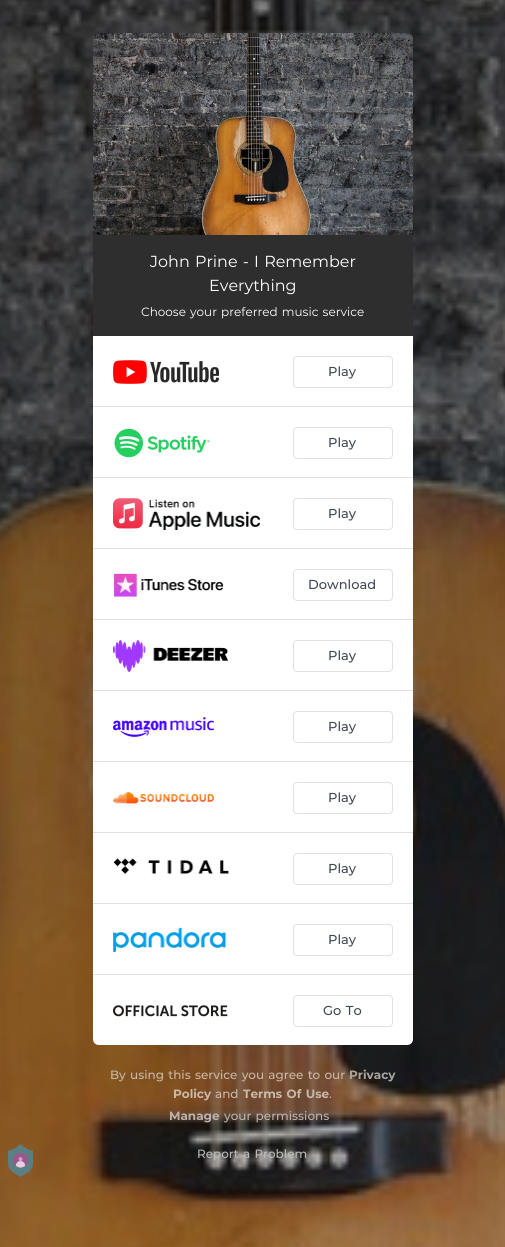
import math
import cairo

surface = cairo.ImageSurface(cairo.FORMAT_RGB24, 505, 1247)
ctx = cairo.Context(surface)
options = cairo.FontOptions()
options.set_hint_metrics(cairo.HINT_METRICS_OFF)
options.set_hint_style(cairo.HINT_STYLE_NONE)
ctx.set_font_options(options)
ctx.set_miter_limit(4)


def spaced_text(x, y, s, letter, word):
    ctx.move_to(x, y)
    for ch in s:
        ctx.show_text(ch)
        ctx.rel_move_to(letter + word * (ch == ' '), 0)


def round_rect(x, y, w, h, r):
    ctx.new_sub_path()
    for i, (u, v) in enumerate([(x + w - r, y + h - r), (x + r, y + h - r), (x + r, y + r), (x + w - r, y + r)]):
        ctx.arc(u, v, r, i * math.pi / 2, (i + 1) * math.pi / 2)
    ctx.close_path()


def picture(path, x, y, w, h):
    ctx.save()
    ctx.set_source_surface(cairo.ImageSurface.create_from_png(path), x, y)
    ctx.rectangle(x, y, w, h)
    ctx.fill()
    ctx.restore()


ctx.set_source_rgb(1, 1, 1)
ctx.paint()
picture("img2.png", 0, 0, 505, 1247)
picture("img1.png", 8, 1144, 25, 33)
picture("img3.png", 93, 33, 320, 202)
ctx.set_source_rgb(0.18, 0.18, 0.18)
ctx.rectangle(93, 235, 320, 101)
ctx.fill()
ctx.select_font_face("Montserrat")
ctx.set_font_size(16)
ctx.set_source_rgb(1, 1, 1)
spaced_text(150, 267, "John Prine - I Remember", 0, 1)
ctx.move_to(209, 291)
ctx.show_text("Everything")
ctx.set_font_size(12)
spaced_text(141, 316, "Choose your preferred music service", 0, 1)
ctx.new_path()
ctx.move_to(93, 336)
ctx.line_to(413, 336)
ctx.line_to(413, 1039)
ctx.curve_to(413, 1042.5, 410.5, 1045, 407, 1045)
ctx.line_to(99, 1045)
ctx.curve_to(95.5, 1045, 93, 1042.5, 93, 1039)
ctx.close_path()
ctx.fill()
ctx.set_source_rgb(0.882, 0.882, 0.894)
ctx.rectangle(93, 406, 320, 1)
ctx.fill()
picture("img4.png", 113, 360, 106, 24)
round_rect(293.5, 356.5, 99, 31, 3.5)
ctx.set_line_width(1)
ctx.stroke()
ctx.select_font_face("Montserrat Medium")
ctx.set_font_size(13)
ctx.set_source_rgb(0.255, 0.278, 0.329)
ctx.move_to(328, 376)
ctx.show_text("Play")
ctx.set_source_rgb(0.882, 0.882, 0.894)
ctx.rectangle(93, 477, 320, 1)
ctx.fill()
picture("img5.png", 114, 428, 96, 30)
round_rect(293.5, 427.5, 99, 31, 3.5)
ctx.stroke()
ctx.set_source_rgb(0.255, 0.278, 0.329)
ctx.move_to(328, 447)
ctx.show_text("Play")
ctx.set_source_rgb(0.882, 0.882, 0.894)
ctx.rectangle(93, 548, 320, 1)
ctx.fill()
picture("img6.png", 113, 498, 147, 32)
round_rect(293.5, 498.5, 99, 31, 3.5)
ctx.stroke()
ctx.set_source_rgb(0.255, 0.278, 0.329)
ctx.move_to(328, 518)
ctx.show_text("Play")
ctx.set_source_rgb(0.882, 0.882, 0.894)
ctx.rectangle(93, 619, 320, 1)
ctx.fill()
picture("img7.png", 114, 573, 110, 24)
round_rect(293.5, 569.5, 99, 31, 3.5)
ctx.stroke()
ctx.set_source_rgb(0.255, 0.278, 0.329)
ctx.move_to(308, 589)
ctx.show_text("Download")
ctx.set_source_rgb(0.882, 0.882, 0.894)
ctx.rectangle(93, 690, 320, 1)
ctx.fill()
picture("img8.png", 113, 640, 115, 32)
round_rect(293.5, 640.5, 99, 31, 3.5)
ctx.stroke()
ctx.set_source_rgb(0.255, 0.278, 0.329)
ctx.move_to(328, 660)
ctx.show_text("Play")
ctx.set_source_rgb(0.882, 0.882, 0.894)
ctx.rectangle(93, 761, 320, 1)
ctx.fill()
picture("img9.png", 113, 717, 101, 20)
round_rect(293.5, 711.5, 99, 31, 3.5)
ctx.stroke()
ctx.set_source_rgb(0.255, 0.278, 0.329)
ctx.move_to(328, 731)
ctx.show_text("Play")
ctx.set_source_rgb(0.882, 0.882, 0.894)
ctx.rectangle(93, 832, 320, 1)
ctx.fill()
picture("img10.png", 113, 792, 101, 12)
round_rect(293.5, 782.5, 99, 31, 3.5)
ctx.stroke()
ctx.set_source_rgb(0.255, 0.278, 0.329)
ctx.move_to(328, 802)
ctx.show_text("Play")
ctx.set_source_rgb(0.882, 0.882, 0.894)
ctx.rectangle(93, 903, 320, 1)
ctx.fill()
picture("img11.png", 113, 858, 116, 16)
round_rect(293.5, 853.5, 99, 31, 3.5)
ctx.stroke()
ctx.set_source_rgb(0.255, 0.278, 0.329)
ctx.move_to(328, 873)
ctx.show_text("Play")
ctx.set_source_rgb(0.882, 0.882, 0.894)
ctx.rectangle(93, 974, 320, 1)
ctx.fill()
picture("img12.png", 113, 927, 114, 26)
round_rect(293.5, 924.5, 99, 31, 3.5)
ctx.stroke()
ctx.set_source_rgb(0.255, 0.278, 0.329)
ctx.move_to(328, 944)
ctx.show_text("Play")
picture("img13.png", 113, 1005, 115, 12)
round_rect(293.5, 995.5, 99, 31, 3.5)
ctx.set_source_rgb(0.882, 0.882, 0.894)
ctx.stroke()
ctx.set_source_rgb(0.255, 0.278, 0.329)
spaced_text(323, 1015, "Go To", 0, 1)
ctx.set_font_size(12)
ctx.set_source_rgb(0.792, 0.725, 0.667)
spaced_text(110, 1079, "By using this service you agree to our", 0, 1)
ctx.select_font_face("Montserrat", cairo.FONT_SLANT_NORMAL, cairo.FONT_WEIGHT_BOLD)
ctx.set_source_rgb(0.659, 0.651, 0.643)
ctx.move_to(349, 1079)
ctx.show_text("Privacy")
ctx.set_source_rgb(0.792, 0.725, 0.667)
ctx.move_to(173, 1098)
ctx.show_text("Policy")
ctx.select_font_face("Montserrat Medium")
ctx.move_to(215, 1098)
ctx.show_text("and")
ctx.select_font_face("Montserrat", cairo.FONT_SLANT_NORMAL, cairo.FONT_WEIGHT_BOLD)
spaced_text(243, 1098, "Terms Of Use", 0, 1)
ctx.select_font_face("Montserrat Medium")
ctx.move_to(329, 1098)
ctx.show_text(".")
ctx.select_font_face("Montserrat", cairo.FONT_SLANT_NORMAL, cairo.FONT_WEIGHT_BOLD)
ctx.set_source_rgb(0.741, 0.702, 0.675)
ctx.move_to(169, 1120)
ctx.show_text("Manage")
ctx.select_font_face("Montserrat Medium")
spaced_text(224, 1120, "your permissions", 0, 1)
ctx.set_source_rgb(0.733, 0.733, 0.729)
spaced_text(197, 1158, "Report a Problem", 0, 1)
surface.write_to_png("page.png")
